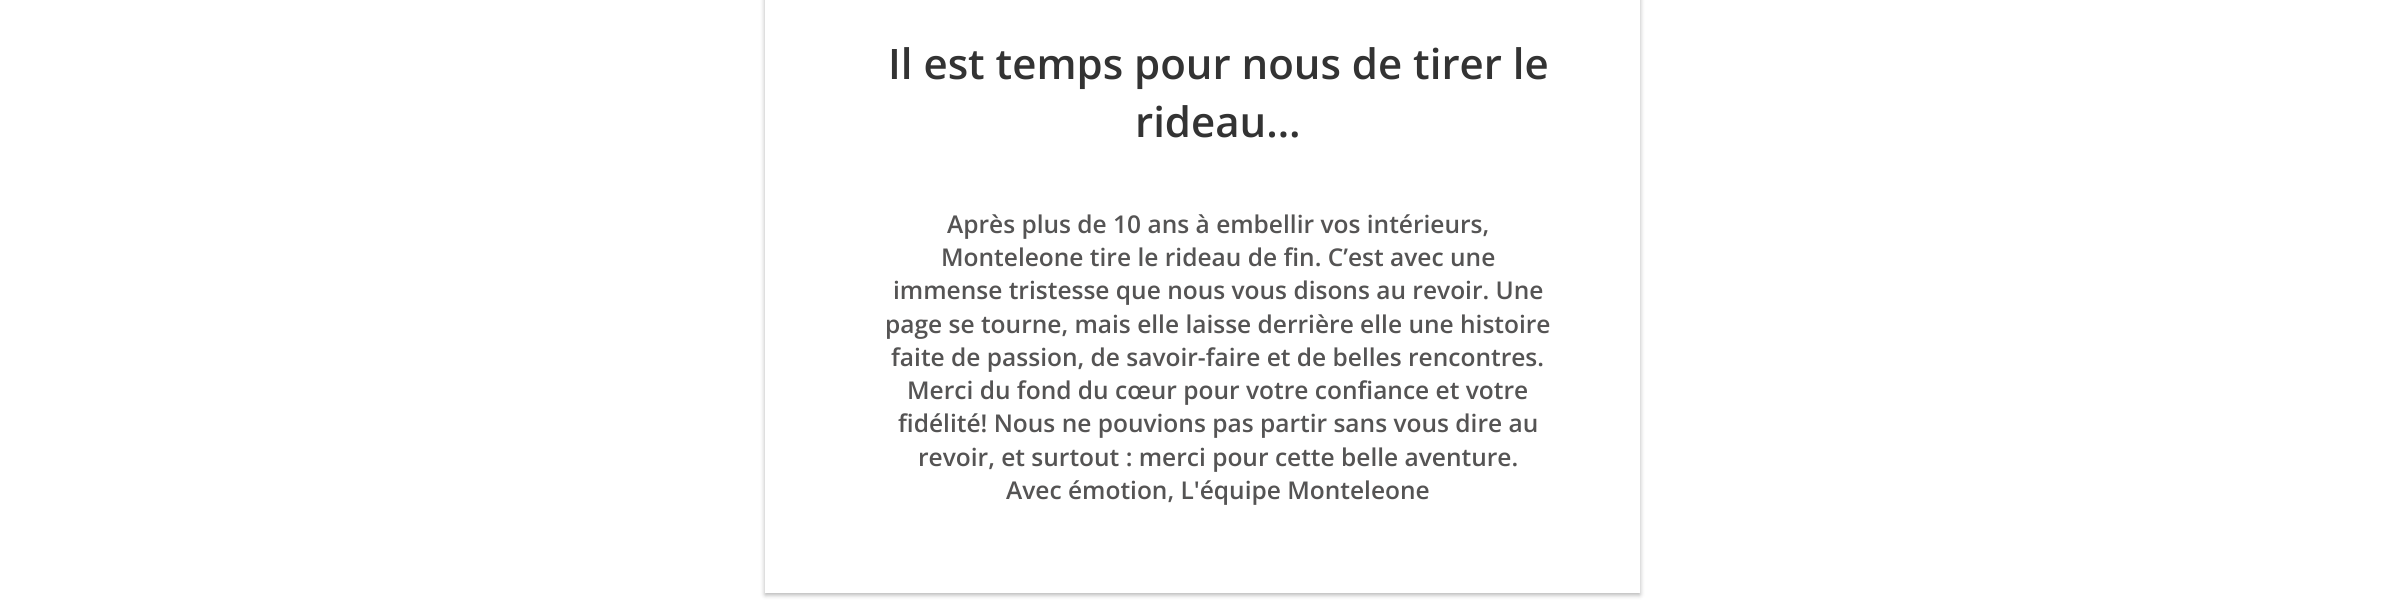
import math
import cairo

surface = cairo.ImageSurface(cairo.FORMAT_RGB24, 2403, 607)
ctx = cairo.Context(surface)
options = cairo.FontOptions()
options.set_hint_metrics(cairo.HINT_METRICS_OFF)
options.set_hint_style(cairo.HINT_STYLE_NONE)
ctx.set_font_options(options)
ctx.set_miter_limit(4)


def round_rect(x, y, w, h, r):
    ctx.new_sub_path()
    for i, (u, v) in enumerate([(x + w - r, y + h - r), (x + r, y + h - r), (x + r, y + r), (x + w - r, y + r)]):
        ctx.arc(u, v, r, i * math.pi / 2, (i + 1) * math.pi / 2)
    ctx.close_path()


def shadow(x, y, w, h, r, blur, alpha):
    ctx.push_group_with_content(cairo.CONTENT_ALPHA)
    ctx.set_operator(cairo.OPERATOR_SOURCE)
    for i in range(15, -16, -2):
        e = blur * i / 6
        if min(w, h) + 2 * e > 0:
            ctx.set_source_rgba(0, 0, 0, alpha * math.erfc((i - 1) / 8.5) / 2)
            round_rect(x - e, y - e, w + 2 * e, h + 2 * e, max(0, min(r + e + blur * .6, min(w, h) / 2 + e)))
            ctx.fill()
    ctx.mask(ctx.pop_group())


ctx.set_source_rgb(1, 1, 1)
ctx.paint()
ctx.set_source_rgb(0, 0, 0)
shadow(765, -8, 875, 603, 0, 2.5, 0.3)
ctx.set_source_rgb(1, 1, 1)
ctx.rectangle(765, 0, 875, 593)
ctx.fill()
ctx.select_font_face("Open Sans SemiBold")
ctx.set_font_size(42)
ctx.set_source_rgb(0.2, 0.2, 0.2)
ctx.move_to(888, 79)
ctx.show_text("Il est temps pour nous de tirer le")
ctx.move_to(1135, 137)
ctx.show_text("rideau…")
ctx.set_font_size(24.5)
ctx.set_source_rgb(0.333, 0.329, 0.329)
ctx.move_to(947, 233)
ctx.show_text("Après plus de 10 ans à embellir vos intérieurs,")
ctx.move_to(941, 266)
ctx.show_text("Monteleone tire le rideau de fin. C’est avec une")
ctx.move_to(893, 299)
ctx.show_text("immense tristesse que nous vous disons au revoir. Une")
ctx.move_to(885, 333)
ctx.show_text("page se tourne, mais elle laisse derrière elle une histoire")
ctx.move_to(891, 366)
ctx.show_text("faite de passion, de savoir-faire et de belles rencontres.")
ctx.move_to(907, 399)
ctx.show_text("Merci du fond du cœur pour votre confiance et votre")
ctx.move_to(898, 432)
ctx.show_text("fidélité! Nous ne pouvions pas partir sans vous dire au")
ctx.move_to(918, 466)
ctx.show_text("revoir, et surtout : merci pour cette belle aventure.")
ctx.move_to(1006, 499)
ctx.show_text("Avec émotion, L'équipe Monteleone")
surface.write_to_png("page.png")
